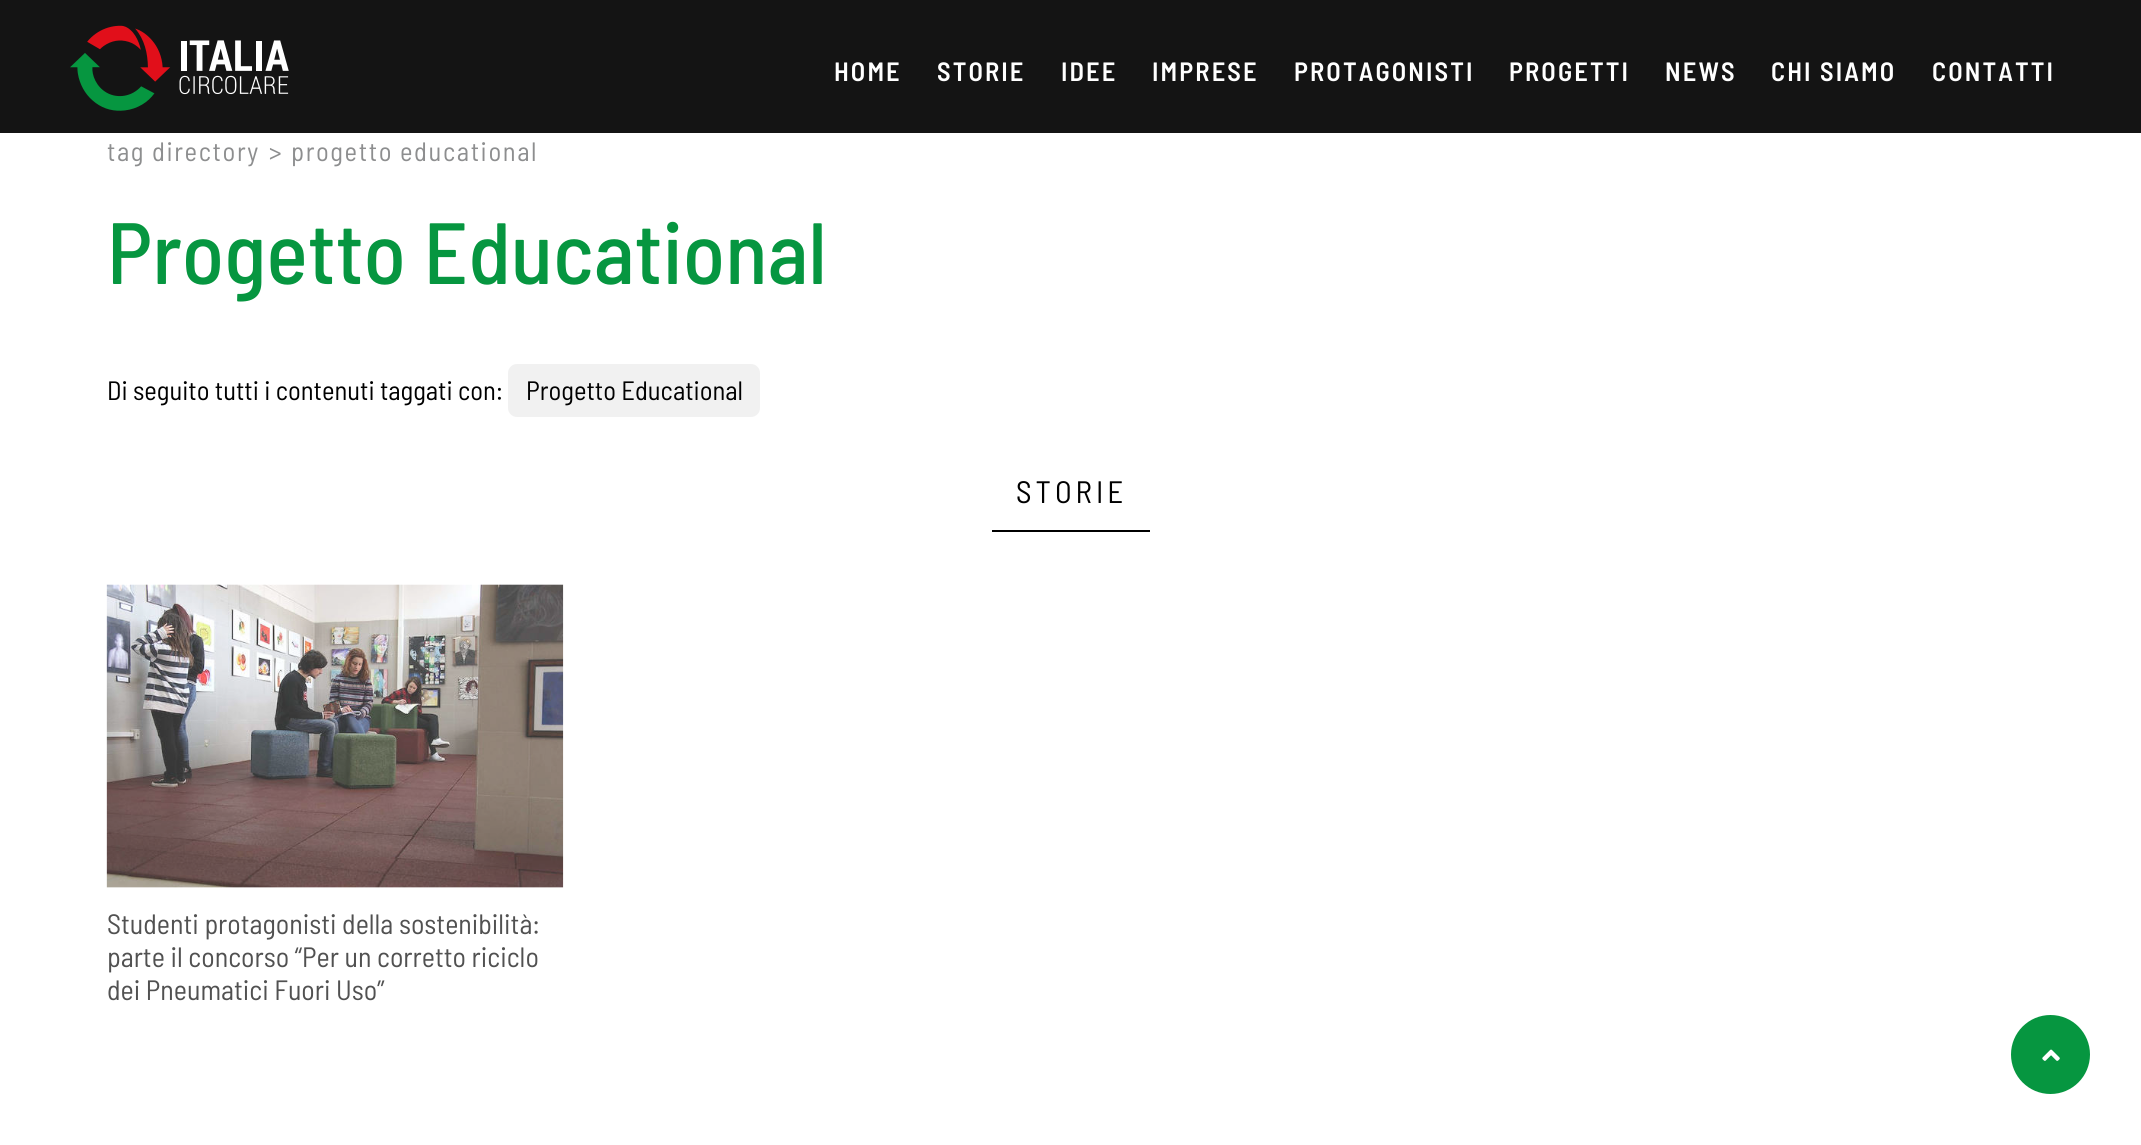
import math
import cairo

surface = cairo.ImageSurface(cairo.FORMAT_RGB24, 2141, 1145)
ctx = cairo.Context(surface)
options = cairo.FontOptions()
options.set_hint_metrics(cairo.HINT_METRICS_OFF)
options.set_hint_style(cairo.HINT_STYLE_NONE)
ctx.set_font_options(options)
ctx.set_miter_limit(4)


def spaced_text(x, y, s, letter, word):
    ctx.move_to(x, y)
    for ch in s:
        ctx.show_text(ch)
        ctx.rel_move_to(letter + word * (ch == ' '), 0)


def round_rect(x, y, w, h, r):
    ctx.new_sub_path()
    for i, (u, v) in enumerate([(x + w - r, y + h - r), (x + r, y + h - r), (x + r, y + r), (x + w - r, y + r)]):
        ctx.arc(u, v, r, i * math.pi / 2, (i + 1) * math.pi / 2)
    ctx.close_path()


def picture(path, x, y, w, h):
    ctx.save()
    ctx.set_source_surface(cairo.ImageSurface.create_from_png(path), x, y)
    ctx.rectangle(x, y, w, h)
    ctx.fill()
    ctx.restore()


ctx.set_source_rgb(1, 1, 1)
ctx.paint()
ctx.set_source_rgb(0.082, 0.082, 0.082)
ctx.rectangle(0, 0, 2141, 133)
ctx.fill()
picture("img1.png", 70, 25, 219, 86)
ctx.select_font_face("Barlow Semi Condensed SemiBold")
ctx.set_font_size(26.5)
ctx.set_source_rgb(1, 1, 1)
spaced_text(834, 81, "HOME", 2.1, 0)
spaced_text(937, 81, "STORIE", 2.1, 0)
spaced_text(1061, 81, "IDEE", 2.1, 0)
spaced_text(1152, 81, "IMPRESE", 2.1, 0)
spaced_text(1294, 81, "PROTAGONISTI", 2.1, 0)
spaced_text(1509, 81, "PROGETTI", 2.1, 0)
spaced_text(1665, 81, "NEWS", 2.1, 0)
spaced_text(1771, 81, "CHI SIAMO", 2.1, 0)
spaced_text(1932, 81, "CONTATTI", 2.1, 0)
ctx.select_font_face("Barlow Semi Condensed")
ctx.set_font_size(26.6)
ctx.set_source_rgb(0.553, 0.557, 0.561)
spaced_text(107, 161, "tag directory", 1.6, 0)
spaced_text(269, 161, ">", 1.6, 0)
spaced_text(291, 161, "progetto educational", 1.6, 0)
ctx.select_font_face("Barlow Semi Condensed Medium")
ctx.set_font_size(86.75)
ctx.set_source_rgb(0.024, 0.588, 0.251)
ctx.move_to(107, 284)
ctx.show_text("Progetto Educational")
ctx.select_font_face("Barlow Semi Condensed")
ctx.set_font_size(26.6)
ctx.set_source_rgb(0, 0, 0)
ctx.move_to(107, 400)
ctx.show_text("Di seguito tutti i contenuti taggati con:")
ctx.set_source_rgb(0.945, 0.945, 0.945)
round_rect(508, 364, 252, 53, 9)
ctx.fill()
ctx.set_source_rgb(0, 0, 0)
ctx.move_to(526, 400)
ctx.show_text("Progetto Educational")
ctx.rectangle(992, 530, 158, 2)
ctx.fill()
ctx.set_font_size(31)
spaced_text(1016, 503, "STORIE", 4, 0)
picture("img2.png", 106, 584, 458, 304)
ctx.set_font_size(28)
ctx.set_source_rgb(0.318, 0.318, 0.318)
ctx.move_to(107, 934)
ctx.show_text("Studenti protagonisti della sostenibilità:")
ctx.move_to(107, 967)
ctx.show_text("parte il concorso “Per un corretto riciclo")
ctx.move_to(107, 1000)
ctx.show_text("dei Pneumatici Fuori Uso”")
ctx.set_source_rgb(0.024, 0.588, 0.251)
ctx.new_path()
ctx.arc(2050.5, 1054.5, 39.5, 0, 2 * math.pi)
ctx.fill()
picture("img3.png", 2042, 1049, 18, 12)
surface.write_to_png("page.png")
